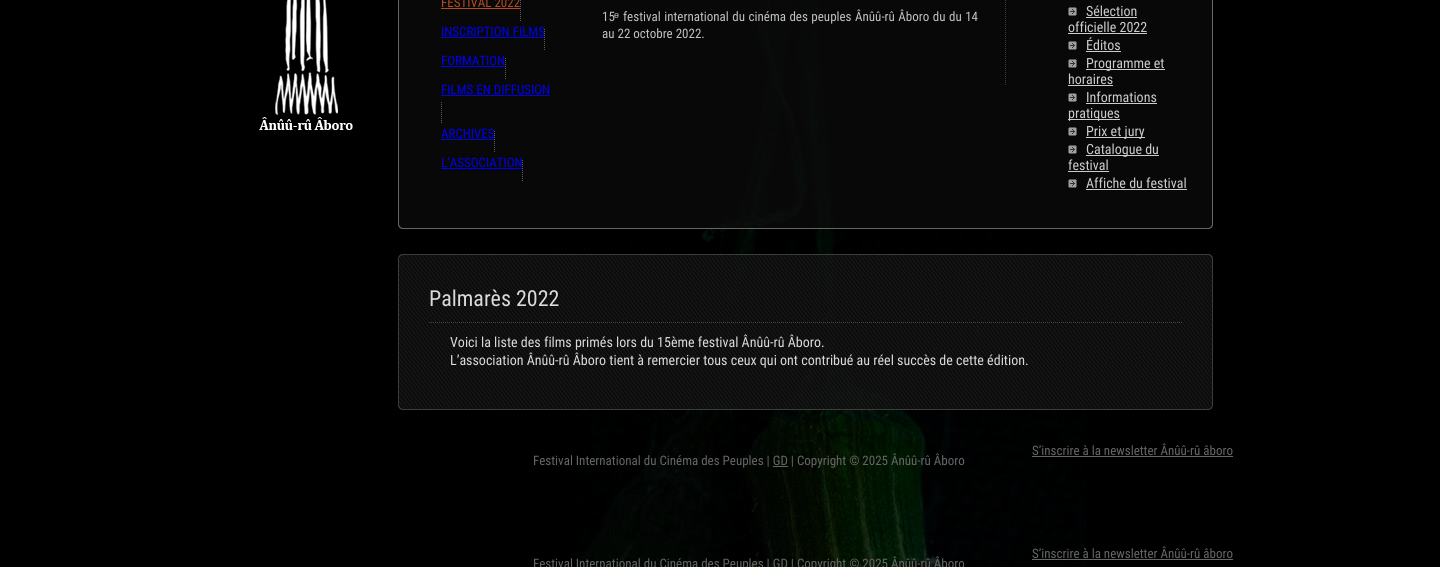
import math
import cairo

surface = cairo.ImageSurface(cairo.FORMAT_RGB24, 1440, 567)
ctx = cairo.Context(surface)
options = cairo.FontOptions()
options.set_hint_metrics(cairo.HINT_METRICS_OFF)
options.set_hint_style(cairo.HINT_STYLE_NONE)
ctx.set_font_options(options)
ctx.set_miter_limit(4)


def spaced_text(x, y, s, letter, word):
    ctx.move_to(x, y)
    for ch in s:
        ctx.show_text(ch)
        ctx.rel_move_to(letter + word * (ch == ' '), 0)


def round_rect(x, y, w, h, r):
    ctx.new_sub_path()
    for i, (u, v) in enumerate([(x + w - r, y + h - r), (x + r, y + h - r), (x + r, y + r), (x + w - r, y + r)]):
        ctx.arc(u, v, r, i * math.pi / 2, (i + 1) * math.pi / 2)
    ctx.close_path()


def picture(path, x, y, w, h):
    ctx.save()
    ctx.set_source_surface(cairo.ImageSurface.create_from_png(path), x, y)
    ctx.rectangle(x, y, w, h)
    ctx.fill()
    ctx.restore()


ctx.set_source_rgb(0, 0, 0)
ctx.paint()
picture("img1.png", 259, 0, 94, 130)
picture("img10.png", 577, 0, 509, 567)
picture("img3.png", 398, 0, 815, 229)
ctx.set_source_rgb(0.4, 0.4, 0.4)
ctx.set_fill_rule(cairo.FILL_RULE_EVEN_ODD)
ctx.new_path()
ctx.move_to(398, -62)
ctx.line_to(1213, -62)
ctx.line_to(1213, 224)
ctx.curve_to(1213, 227, 1211, 229, 1208, 229)
ctx.line_to(403, 229)
ctx.curve_to(400, 229, 398, 227, 398, 224)
ctx.close_path()
ctx.move_to(399, -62)
ctx.line_to(1212, -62)
ctx.line_to(1212, 224)
ctx.curve_to(1212, 226, 1210, 228, 1208, 228)
ctx.line_to(403, 228)
ctx.curve_to(401, 228, 399, 226, 399, 224)
ctx.close_path()
ctx.fill()
ctx.select_font_face("Roboto Condensed")
ctx.set_font_size(13)
ctx.set_source_rgb(0.702, 0.29, 0.133)
ctx.move_to(441, 7)
ctx.show_text("FESTIVAL 2022")
ctx.rectangle(441, 8, 79, 1)
ctx.fill()
picture("img2.png", 520, 0, 1, 21)
ctx.set_source_rgb(0, 0, 0.933)
ctx.move_to(441, 36)
ctx.show_text("INSCRIPTION FILMS")
ctx.rectangle(441, 37, 103, 1)
ctx.fill()
picture("img2.png", 544, 29, 1, 21)
ctx.move_to(441, 65)
ctx.show_text("FORMATION")
ctx.rectangle(441, 66, 64, 1)
ctx.fill()
picture("img2.png", 505, 58, 1, 21)
ctx.move_to(441, 94)
ctx.show_text("FILMS EN DIFFUSION")
ctx.rectangle(441, 95, 109, 1)
ctx.fill()
picture("img2.png", 441, 102, 1, 21)
ctx.move_to(441, 138)
ctx.show_text("ARCHIVES")
ctx.rectangle(441, 139, 53, 1)
ctx.fill()
picture("img2.png", 494, 131, 1, 21)
ctx.move_to(441, 167)
ctx.show_text("L’ASSOCIATION")
ctx.rectangle(441, 168, 81, 1)
ctx.fill()
picture("img2.png", 522, 160, 1, 21)
ctx.set_source_rgb(0.757, 0.757, 0.757)
ctx.move_to(602, 21)
ctx.show_text("15")
ctx.select_font_face("Liberation Sans")
ctx.move_to(614, 21)
ctx.show_text("ᶱ")
ctx.select_font_face("Roboto Condensed")
spaced_text(623, 21, "festival international du cinéma des peuples Ânûû-rû Âboro du du 14", 0, 0.5)
ctx.move_to(602, 38)
ctx.show_text("au 22 octobre 2022.")
ctx.new_path()
ctx.move_to(1005.5, -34)
ctx.line_to(1005.5, 86)
ctx.set_source_rgb(0.235, 0.235, 0.235)
ctx.set_line_width(1)
ctx.set_dash([1, 1])
ctx.stroke()
picture("img4.png", 1068, 7, 9, 9)
ctx.set_font_size(14)
ctx.set_source_rgb(0.8, 0.8, 0.8)
ctx.move_to(1086, 16)
ctx.show_text("Sélection")
ctx.rectangle(1086, 17, 51, 1)
ctx.fill()
ctx.move_to(1068, 32)
ctx.show_text("officielle 2022")
ctx.rectangle(1068, 33, 79, 1)
ctx.fill()
picture("img4.png", 1068, 41, 9, 9)
ctx.move_to(1086, 50)
ctx.show_text("Éditos")
ctx.rectangle(1086, 51, 35, 1)
ctx.fill()
picture("img5.png", 1068, 59, 9, 9)
ctx.rectangle(1086, 69, 79, 1)
ctx.fill()
ctx.move_to(1086, 68)
ctx.show_text("Programme et")
ctx.move_to(1068, 84)
ctx.show_text("horaires")
ctx.rectangle(1068, 85, 45, 1)
ctx.fill()
picture("img6.png", 1068, 93, 9, 9)
ctx.move_to(1086, 102)
ctx.show_text("Informations")
ctx.rectangle(1086, 103, 71, 1)
ctx.fill()
ctx.rectangle(1068, 119, 52, 1)
ctx.fill()
ctx.move_to(1068, 118)
ctx.show_text("pratiques")
picture("img4.png", 1068, 127, 9, 9)
ctx.rectangle(1086, 137, 59, 1)
ctx.fill()
ctx.move_to(1086, 136)
ctx.show_text("Prix et jury")
picture("img4.png", 1068, 145, 9, 9)
ctx.rectangle(1086, 155, 73, 1)
ctx.fill()
ctx.move_to(1086, 154)
ctx.show_text("Catalogue du")
ctx.move_to(1068, 170)
ctx.show_text("festival")
ctx.rectangle(1068, 171, 41, 1)
ctx.fill()
picture("img7.png", 1068, 179, 9, 9)
ctx.move_to(1086, 188)
ctx.show_text("Affiche du festival")
ctx.rectangle(1086, 189, 101, 1)
ctx.fill()
picture("img8.png", 398, 254, 815, 156)
round_rect(398.5, 254.5, 814, 155, 4.5)
ctx.set_source_rgb(0.235, 0.235, 0.235)
ctx.set_dash([])
ctx.stroke()
picture("img9.png", 399, 255, 813, 154)
ctx.set_font_size(22)
ctx.set_source_rgb(0.855, 0.855, 0.855)
ctx.move_to(429, 306)
ctx.show_text("Palmarès 2022")
ctx.new_path()
ctx.move_to(429, 322.5)
ctx.line_to(1182, 322.5)
ctx.set_source_rgb(0.267, 0.267, 0.267)
ctx.set_dash([1, 1])
ctx.stroke()
ctx.set_font_size(14)
ctx.set_source_rgb(0.855, 0.855, 0.855)
ctx.move_to(450, 347)
ctx.show_text("Voici la liste des films primés lors du 15ème festival Ânûû-rû Âboro.")
ctx.move_to(450, 365)
ctx.show_text("L’association Ânûû-rû Âboro tient à remercier tous ceux qui ont contribué au réel succès de cette édition.")
ctx.set_font_size(13)
ctx.set_source_rgb(0.4, 0.4, 0.4)
ctx.move_to(1032, 455)
ctx.show_text("S’inscrire à la newsletter Ânûû-rû âboro")
ctx.rectangle(1032, 456, 201, 1)
ctx.fill()
ctx.move_to(533, 465)
ctx.show_text("Festival International du Cinéma des Peuples | GD | Copyright © 2025 Ânûû-rû Âboro")
ctx.rectangle(773, 466, 15, 1)
ctx.fill()
ctx.move_to(1032, 558)
ctx.show_text("S’inscrire à la newsletter Ânûû-rû âboro")
ctx.rectangle(1032, 559, 201, 1)
ctx.fill()
ctx.move_to(533, 568)
ctx.show_text("Festival International du Cinéma des Peuples | GD | Copyright © 2025 Ânûû-rû Âboro")
surface.write_to_png("page.png")
